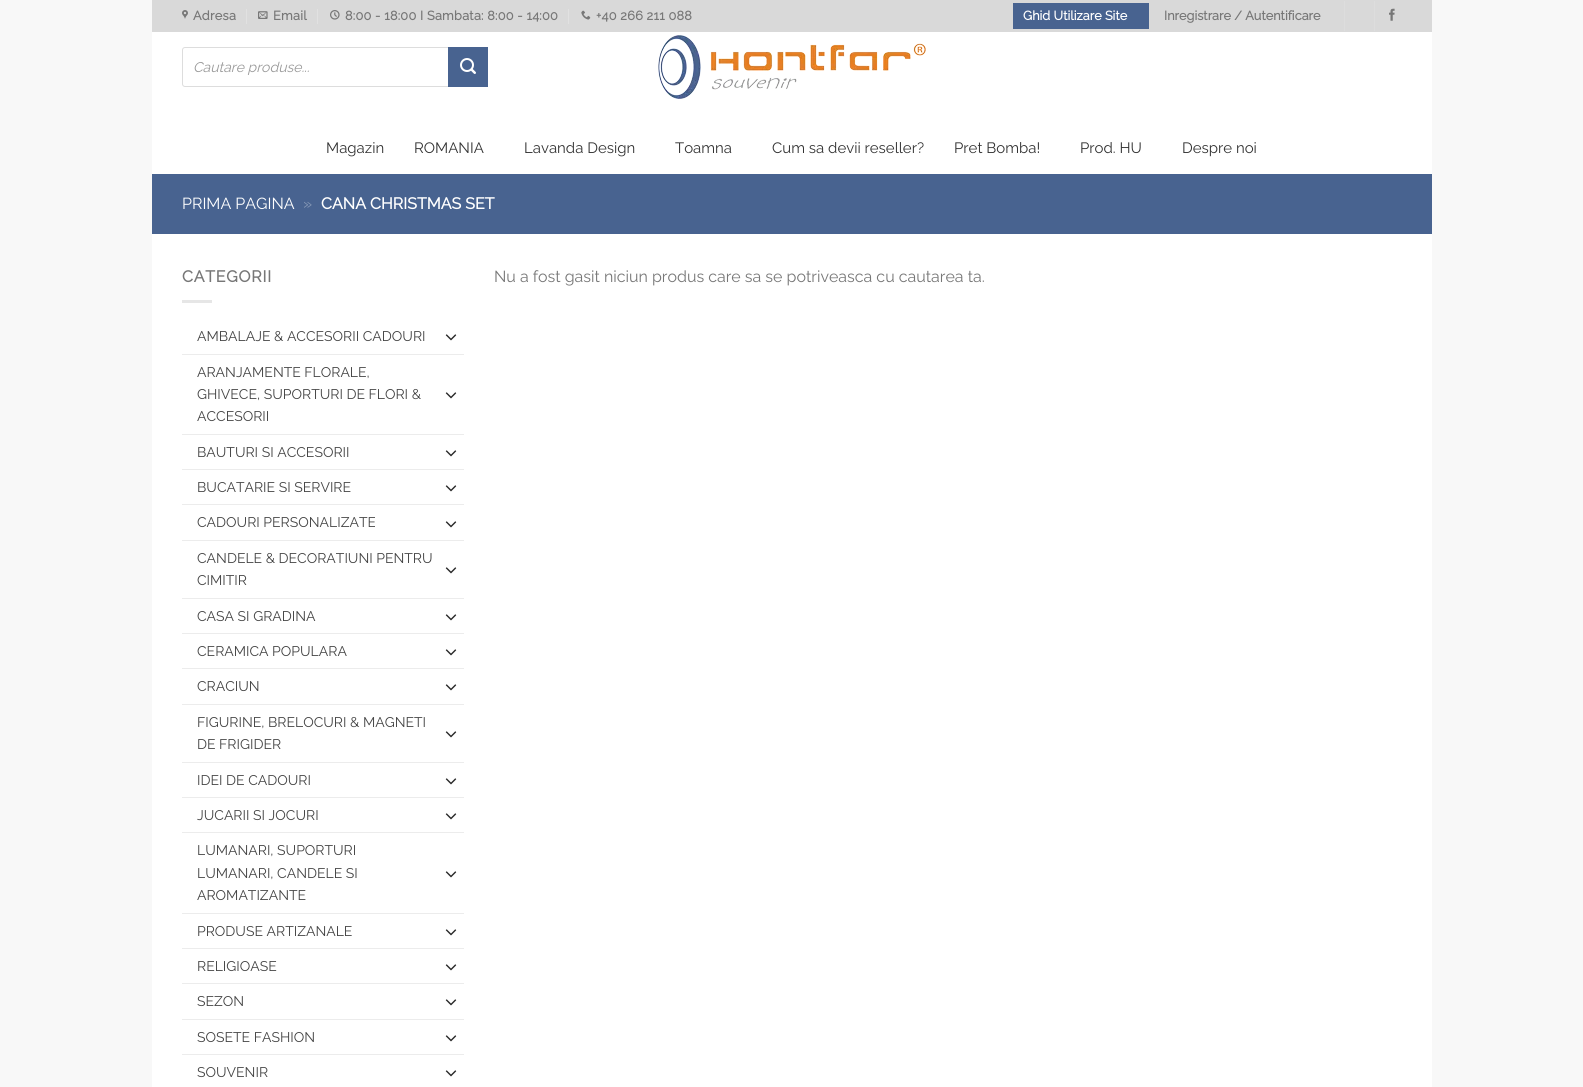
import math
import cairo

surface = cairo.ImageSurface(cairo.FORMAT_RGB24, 1583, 1087)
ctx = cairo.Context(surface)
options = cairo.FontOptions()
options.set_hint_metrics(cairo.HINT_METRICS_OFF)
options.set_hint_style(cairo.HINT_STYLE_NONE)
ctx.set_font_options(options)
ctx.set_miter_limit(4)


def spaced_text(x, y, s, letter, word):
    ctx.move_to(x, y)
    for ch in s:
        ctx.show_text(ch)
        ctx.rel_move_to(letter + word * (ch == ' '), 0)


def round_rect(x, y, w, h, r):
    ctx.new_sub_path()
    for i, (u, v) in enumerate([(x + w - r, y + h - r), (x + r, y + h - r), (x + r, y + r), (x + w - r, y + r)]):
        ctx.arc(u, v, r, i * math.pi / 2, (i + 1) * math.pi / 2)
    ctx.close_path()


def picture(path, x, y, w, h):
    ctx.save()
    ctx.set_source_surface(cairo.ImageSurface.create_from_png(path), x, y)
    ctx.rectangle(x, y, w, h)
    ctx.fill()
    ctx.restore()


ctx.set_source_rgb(0.969, 0.969, 0.969)
ctx.paint()
ctx.set_source_rgb(1, 1, 1)
ctx.rectangle(152, 32, 1280, 1055)
ctx.fill()
ctx.set_source_rgb(0.851, 0.851, 0.851)
ctx.rectangle(152, 0, 1280, 32)
ctx.fill()
picture("img1.png", 182, 10, 6, 9)
ctx.select_font_face("Raleway", cairo.FONT_SLANT_NORMAL, cairo.FONT_WEIGHT_BOLD)
ctx.set_font_size(12.75)
ctx.set_source_rgb(0.467, 0.467, 0.467)
spaced_text(193, 20, "Adresa", 0.25, 0)
ctx.set_source_rgb(0.882, 0.882, 0.882)
ctx.rectangle(246, 9, 1, 15)
ctx.fill()
picture("img2.png", 258, 11, 10, 8)
ctx.set_source_rgb(0.467, 0.467, 0.467)
spaced_text(273, 20, "Email", 0.25, 0)
ctx.set_source_rgb(0.882, 0.882, 0.882)
ctx.rectangle(317, 9, 1, 15)
ctx.fill()
picture("img3.png", 330, 10, 10, 10)
ctx.set_source_rgb(0.467, 0.467, 0.467)
spaced_text(345, 20, "8:00 - 18:00 I Sambata: 8:00 - 14:00", 0.25, 0)
ctx.set_source_rgb(0.882, 0.882, 0.882)
ctx.rectangle(568, 9, 1, 15)
ctx.fill()
picture("img4.png", 581, 10, 10, 10)
ctx.set_source_rgb(0.467, 0.467, 0.467)
spaced_text(596, 20, "+40 266 211 088", 0.25, 0)
ctx.set_source_rgb(0.282, 0.388, 0.565)
ctx.rectangle(1013, 3, 136, 26)
ctx.fill()
ctx.set_source_rgb(1, 1, 1)
ctx.move_to(1023, 20)
ctx.show_text("Ghid Utilizare Site")
ctx.set_source_rgb(0.467, 0.467, 0.467)
ctx.move_to(1164, 20)
ctx.show_text("Inregistrare / Autentificare")
ctx.set_source_rgb(0.867, 0.867, 0.867)
ctx.rectangle(1344, 1, 1, 30)
ctx.fill()
ctx.rectangle(1374, 1, 1, 30)
ctx.fill()
picture("img5.png", 1389, 8, 6, 13)
round_rect(182.5, 47.5, 305, 39, 2.5)
ctx.set_line_width(1)
ctx.stroke()
ctx.select_font_face("Raleway Thin", cairo.FONT_SLANT_ITALIC)
ctx.set_font_size(14)
ctx.set_source_rgb(0.6, 0.6, 0.6)
ctx.move_to(193, 72)
ctx.show_text("Cautare produse...")
ctx.set_source_rgb(0.282, 0.388, 0.565)
ctx.rectangle(448, 47, 40, 40)
ctx.fill()
picture("img6.png", 460, 58, 16, 16)
picture("img7.png", 658, 35, 268, 64)
ctx.select_font_face("Raleway Thin")
ctx.set_font_size(15)
ctx.set_source_rgb(0.2, 0.2, 0.2)
ctx.move_to(326, 153)
ctx.show_text("Magazin")
ctx.move_to(414, 153)
ctx.show_text("ROMANIA")
ctx.move_to(524, 153)
ctx.show_text("Lavanda Design")
ctx.move_to(675, 153)
ctx.show_text("Toamna")
ctx.move_to(772, 153)
ctx.show_text("Cum sa devii reseller?")
ctx.move_to(954, 153)
ctx.show_text("Pret Bomba!")
ctx.move_to(1080, 153)
ctx.show_text("Prod. HU")
ctx.move_to(1182, 153)
ctx.show_text("Despre noi")
ctx.set_source_rgb(0.282, 0.388, 0.565)
ctx.rectangle(152, 174, 1280, 60)
ctx.fill()
ctx.set_font_size(16)
ctx.set_source_rgb(1, 1, 1)
ctx.move_to(182, 209)
ctx.show_text("PRIMA PAGINA")
ctx.set_source_rgb(0.533, 0.604, 0.718)
ctx.move_to(303, 209)
ctx.show_text("»")
ctx.select_font_face("Raleway", cairo.FONT_SLANT_NORMAL, cairo.FONT_WEIGHT_BOLD)
ctx.set_source_rgb(1, 1, 1)
ctx.move_to(321, 209)
ctx.show_text("CANA CHRISTMAS SET")
ctx.set_source_rgb(0.467, 0.467, 0.467)
spaced_text(182, 282, "CATEGORII", 0.75, 0)
ctx.set_source_rgb(0.902, 0.902, 0.902)
ctx.rectangle(182, 300, 30, 3)
ctx.fill()
ctx.select_font_face("Raleway Thin")
ctx.set_font_size(14)
ctx.set_source_rgb(0.267, 0.267, 0.267)
ctx.move_to(197, 341)
ctx.show_text("AMBALAJE & ACCESORII CADOURI")
picture("img8.png", 445, 334, 12, 7)
ctx.set_source_rgb(0.925, 0.925, 0.925)
ctx.rectangle(182, 354, 282, 1)
ctx.fill()
ctx.set_source_rgb(0.267, 0.267, 0.267)
ctx.move_to(197, 377)
ctx.show_text("ARANJAMENTE FLORALE,")
ctx.move_to(197, 399)
ctx.show_text("GHIVECE, SUPORTURI DE FLORI &")
ctx.move_to(197, 421)
ctx.show_text("ACCESORII")
picture("img8.png", 445, 392, 12, 7)
ctx.set_source_rgb(0.925, 0.925, 0.925)
ctx.rectangle(182, 434, 282, 1)
ctx.fill()
ctx.set_source_rgb(0.267, 0.267, 0.267)
ctx.move_to(197, 457)
ctx.show_text("BAUTURI SI ACCESORII")
picture("img8.png", 445, 450, 12, 7)
ctx.set_source_rgb(0.925, 0.925, 0.925)
ctx.rectangle(182, 469, 282, 1)
ctx.fill()
ctx.set_source_rgb(0.267, 0.267, 0.267)
ctx.move_to(197, 492)
ctx.show_text("BUCATARIE SI SERVIRE")
picture("img8.png", 445, 485, 12, 7)
ctx.set_source_rgb(0.925, 0.925, 0.925)
ctx.rectangle(182, 504, 282, 1)
ctx.fill()
ctx.set_source_rgb(0.267, 0.267, 0.267)
ctx.move_to(197, 527)
ctx.show_text("CADOURI PERSONALIZATE")
picture("img8.png", 445, 521, 12, 7)
ctx.set_source_rgb(0.925, 0.925, 0.925)
ctx.rectangle(182, 540, 282, 1)
ctx.fill()
ctx.set_source_rgb(0.267, 0.267, 0.267)
ctx.move_to(197, 563)
ctx.show_text("CANDELE & DECORATIUNI PENTRU")
ctx.move_to(197, 585)
ctx.show_text("CIMITIR")
picture("img8.png", 445, 567, 12, 7)
ctx.set_source_rgb(0.925, 0.925, 0.925)
ctx.rectangle(182, 598, 282, 1)
ctx.fill()
ctx.set_source_rgb(0.267, 0.267, 0.267)
ctx.move_to(197, 621)
ctx.show_text("CASA SI GRADINA")
picture("img8.png", 445, 614, 12, 7)
ctx.set_source_rgb(0.925, 0.925, 0.925)
ctx.rectangle(182, 633, 282, 1)
ctx.fill()
ctx.set_source_rgb(0.267, 0.267, 0.267)
ctx.move_to(197, 656)
ctx.show_text("CERAMICA POPULARA")
picture("img8.png", 445, 649, 12, 7)
ctx.set_source_rgb(0.925, 0.925, 0.925)
ctx.rectangle(182, 668, 282, 1)
ctx.fill()
ctx.set_source_rgb(0.267, 0.267, 0.267)
ctx.move_to(197, 691)
ctx.show_text("CRACIUN")
picture("img8.png", 445, 684, 12, 7)
ctx.set_source_rgb(0.925, 0.925, 0.925)
ctx.rectangle(182, 704, 282, 1)
ctx.fill()
ctx.set_source_rgb(0.267, 0.267, 0.267)
ctx.move_to(197, 727)
ctx.show_text("FIGURINE, BRELOCURI & MAGNETI")
ctx.move_to(197, 749)
ctx.show_text("DE FRIGIDER")
picture("img8.png", 445, 731, 12, 7)
ctx.set_source_rgb(0.925, 0.925, 0.925)
ctx.rectangle(182, 762, 282, 1)
ctx.fill()
ctx.set_source_rgb(0.267, 0.267, 0.267)
ctx.move_to(197, 785)
ctx.show_text("IDEI DE CADOURI")
picture("img8.png", 445, 778, 12, 7)
ctx.set_source_rgb(0.925, 0.925, 0.925)
ctx.rectangle(182, 797, 282, 1)
ctx.fill()
ctx.set_source_rgb(0.267, 0.267, 0.267)
ctx.move_to(197, 820)
ctx.show_text("JUCARII SI JOCURI")
picture("img8.png", 445, 813, 12, 7)
ctx.set_source_rgb(0.925, 0.925, 0.925)
ctx.rectangle(182, 832, 282, 1)
ctx.fill()
ctx.set_source_rgb(0.267, 0.267, 0.267)
ctx.move_to(197, 855)
ctx.show_text("LUMANARI, SUPORTURI")
ctx.move_to(197, 878)
ctx.show_text("LUMANARI, CANDELE SI")
ctx.move_to(197, 900)
ctx.show_text("AROMATIZANTE")
picture("img8.png", 445, 871, 12, 7)
ctx.set_source_rgb(0.925, 0.925, 0.925)
ctx.rectangle(182, 913, 282, 1)
ctx.fill()
ctx.set_source_rgb(0.267, 0.267, 0.267)
ctx.move_to(197, 936)
ctx.show_text("PRODUSE ARTIZANALE")
picture("img8.png", 445, 929, 12, 7)
ctx.set_source_rgb(0.925, 0.925, 0.925)
ctx.rectangle(182, 948, 282, 1)
ctx.fill()
ctx.set_source_rgb(0.267, 0.267, 0.267)
ctx.move_to(197, 971)
ctx.show_text("RELIGIOASE")
picture("img8.png", 445, 964, 12, 7)
ctx.set_source_rgb(0.925, 0.925, 0.925)
ctx.rectangle(182, 983, 282, 1)
ctx.fill()
ctx.set_source_rgb(0.267, 0.267, 0.267)
ctx.move_to(197, 1006)
ctx.show_text("SEZON")
picture("img8.png", 445, 999, 12, 7)
ctx.set_source_rgb(0.925, 0.925, 0.925)
ctx.rectangle(182, 1019, 282, 1)
ctx.fill()
ctx.set_source_rgb(0.267, 0.267, 0.267)
ctx.move_to(197, 1042)
ctx.show_text("SOSETE FASHION")
picture("img8.png", 445, 1035, 12, 7)
ctx.set_source_rgb(0.925, 0.925, 0.925)
ctx.rectangle(182, 1054, 282, 1)
ctx.fill()
ctx.set_source_rgb(0.267, 0.267, 0.267)
ctx.move_to(197, 1077)
ctx.show_text("SOUVENIR")
picture("img8.png", 445, 1070, 12, 7)
ctx.set_font_size(16)
ctx.set_source_rgb(0.467, 0.467, 0.467)
ctx.move_to(494, 282)
ctx.show_text("Nu a fost gasit niciun produs care sa se potriveasca cu cautarea ta.")
surface.write_to_png("page.png")
